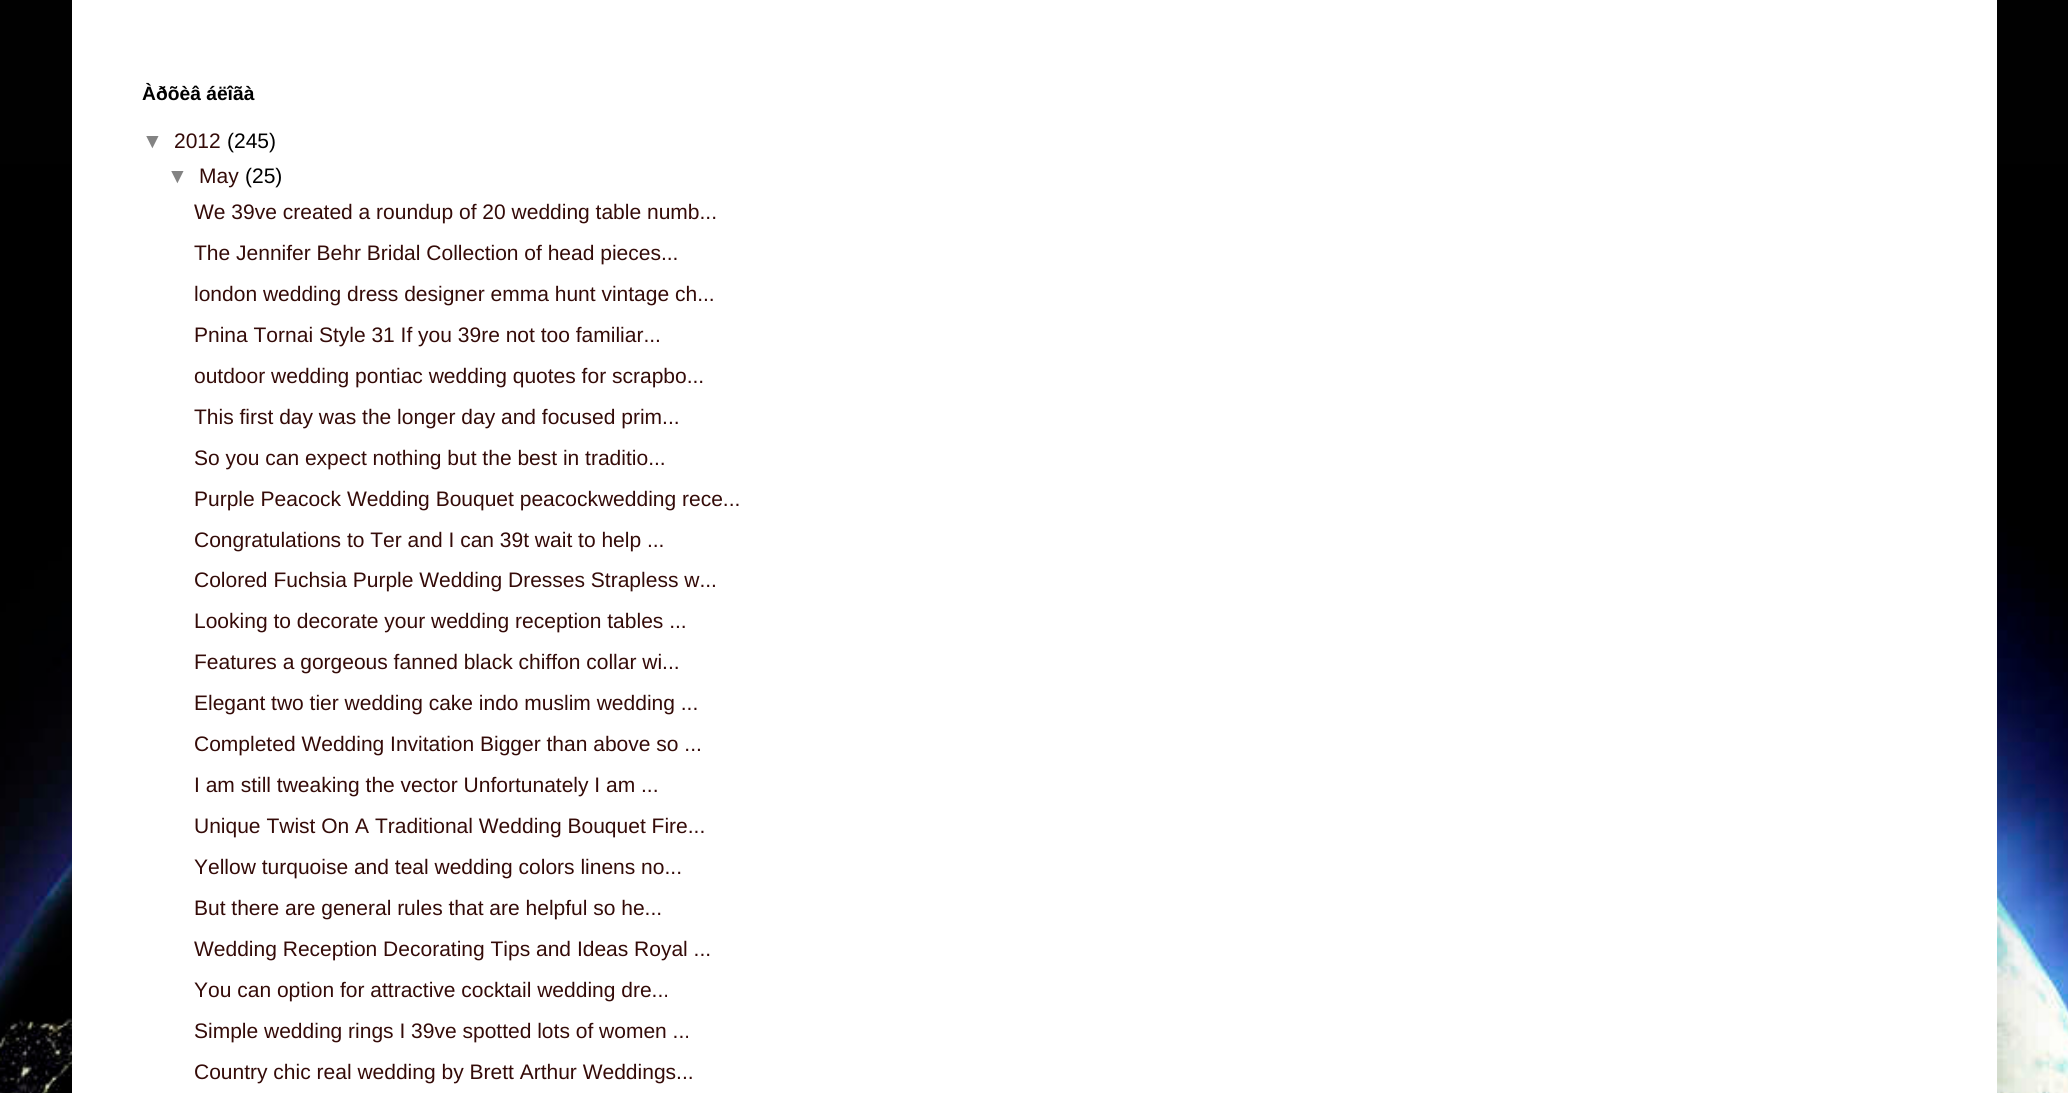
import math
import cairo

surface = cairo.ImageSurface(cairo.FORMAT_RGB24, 2068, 1093)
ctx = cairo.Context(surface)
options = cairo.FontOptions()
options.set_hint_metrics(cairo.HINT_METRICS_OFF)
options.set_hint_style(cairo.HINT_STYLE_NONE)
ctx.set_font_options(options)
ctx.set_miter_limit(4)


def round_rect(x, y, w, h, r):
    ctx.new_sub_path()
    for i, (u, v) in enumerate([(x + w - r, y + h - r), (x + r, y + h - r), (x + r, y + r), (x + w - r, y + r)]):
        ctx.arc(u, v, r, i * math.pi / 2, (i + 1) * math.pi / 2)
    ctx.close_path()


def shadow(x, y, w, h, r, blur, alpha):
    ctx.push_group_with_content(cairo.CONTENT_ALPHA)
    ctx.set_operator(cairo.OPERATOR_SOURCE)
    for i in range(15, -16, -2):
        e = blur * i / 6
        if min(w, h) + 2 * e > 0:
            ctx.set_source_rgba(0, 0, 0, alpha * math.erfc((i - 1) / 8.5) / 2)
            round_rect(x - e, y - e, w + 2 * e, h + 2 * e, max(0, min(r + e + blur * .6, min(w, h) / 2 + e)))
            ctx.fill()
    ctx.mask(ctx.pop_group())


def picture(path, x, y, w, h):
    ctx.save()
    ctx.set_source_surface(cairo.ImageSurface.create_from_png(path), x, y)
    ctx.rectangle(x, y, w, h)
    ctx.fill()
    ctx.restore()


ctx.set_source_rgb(0.004, 0.004, 0.004)
ctx.paint()
picture("img1.png", 0, 164, 2068, 929)
ctx.set_source_rgb(0, 0, 0)
shadow(72, -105, 1925, 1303, 0, 35, 0.15)
ctx.set_source_rgb(1, 1, 1)
ctx.rectangle(72, 0, 1925, 1093)
ctx.fill()
ctx.select_font_face("Liberation Sans", cairo.FONT_SLANT_NORMAL, cairo.FONT_WEIGHT_BOLD)
ctx.set_font_size(19.25)
ctx.set_source_rgb(0, 0, 0)
ctx.move_to(142, 100)
ctx.show_text("Àðõèâ áëîãà")
ctx.select_font_face("Liberation Sans")
ctx.set_font_size(21)
ctx.set_source_rgb(0.514, 0.514, 0.514)
ctx.move_to(142, 148)
ctx.show_text("▼")
ctx.set_source_rgb(0.204, 0.043, 0.035)
ctx.move_to(174, 148)
ctx.show_text("2012")
ctx.set_source_rgb(0, 0, 0)
ctx.move_to(227, 148)
ctx.show_text("(245)")
ctx.set_source_rgb(0.514, 0.514, 0.514)
ctx.move_to(167, 183)
ctx.show_text("▼")
ctx.set_source_rgb(0.204, 0.043, 0.035)
ctx.move_to(199, 183)
ctx.show_text("May")
ctx.set_source_rgb(0, 0, 0)
ctx.move_to(245, 183)
ctx.show_text("(25)")
ctx.set_source_rgb(0.204, 0.043, 0.035)
ctx.move_to(194, 219)
ctx.show_text("We 39ve created a roundup of 20 wedding table numb...")
ctx.move_to(194, 260)
ctx.show_text("The Jennifer Behr Bridal Collection of head pieces...")
ctx.move_to(194, 301)
ctx.show_text("london wedding dress designer emma hunt vintage ch...")
ctx.move_to(194, 342)
ctx.show_text("Pnina Tornai Style 31 If you 39re not too familiar...")
ctx.move_to(194, 383)
ctx.show_text("outdoor wedding pontiac wedding quotes for scrapbo...")
ctx.move_to(194, 424)
ctx.show_text("This first day was the longer day and focused prim...")
ctx.move_to(194, 465)
ctx.show_text("So you can expect nothing but the best in traditio...")
ctx.move_to(194, 506)
ctx.show_text("Purple Peacock Wedding Bouquet peacockwedding rece...")
ctx.move_to(194, 547)
ctx.show_text("Congratulations to Ter and I can 39t wait to help ...")
ctx.move_to(194, 587)
ctx.show_text("Colored Fuchsia Purple Wedding Dresses Strapless w...")
ctx.move_to(194, 628)
ctx.show_text("Looking to decorate your wedding reception tables ...")
ctx.move_to(194, 669)
ctx.show_text("Features a gorgeous fanned black chiffon collar wi...")
ctx.move_to(194, 710)
ctx.show_text("Elegant two tier wedding cake indo muslim wedding ...")
ctx.move_to(194, 751)
ctx.show_text("Completed Wedding Invitation Bigger than above so ...")
ctx.move_to(194, 792)
ctx.show_text("I am still tweaking the vector Unfortunately I am ...")
ctx.move_to(194, 833)
ctx.show_text("Unique Twist On A Traditional Wedding Bouquet Fire...")
ctx.move_to(194, 874)
ctx.show_text("Yellow turquoise and teal wedding colors linens no...")
ctx.move_to(194, 915)
ctx.show_text("But there are general rules that are helpful so he...")
ctx.move_to(194, 956)
ctx.show_text("Wedding Reception Decorating Tips and Ideas Royal ...")
ctx.move_to(194, 997)
ctx.show_text("You can option for attractive cocktail wedding dre...")
ctx.move_to(194, 1038)
ctx.show_text("Simple wedding rings I 39ve spotted lots of women ...")
ctx.move_to(194, 1079)
ctx.show_text("Country chic real wedding by Brett Arthur Weddings...")
surface.write_to_png("page.png")
